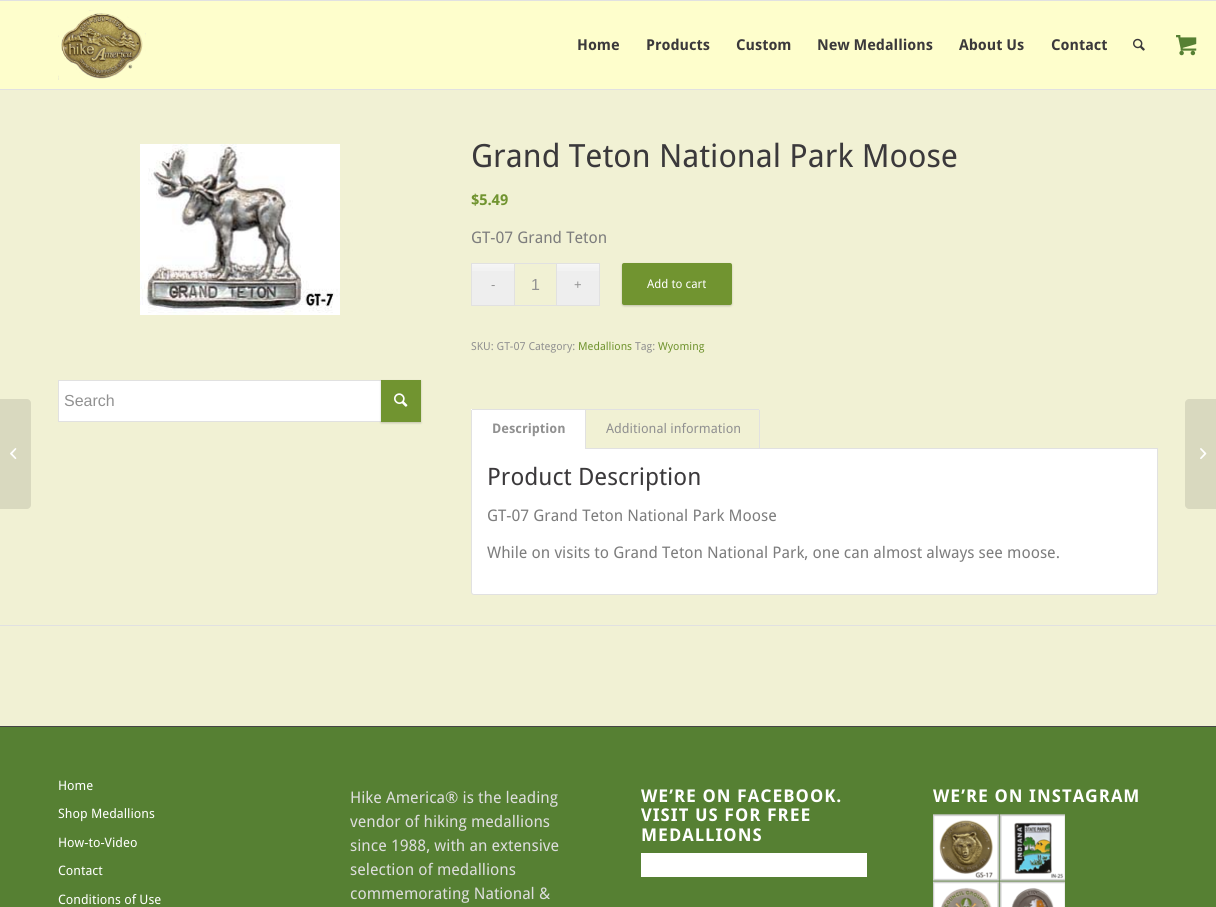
import math
import cairo

surface = cairo.ImageSurface(cairo.FORMAT_RGB24, 1216, 907)
ctx = cairo.Context(surface)
options = cairo.FontOptions()
options.set_hint_metrics(cairo.HINT_METRICS_OFF)
options.set_hint_style(cairo.HINT_STYLE_NONE)
ctx.set_font_options(options)
ctx.set_miter_limit(4)


def spaced_text(x, y, s, letter, word):
    ctx.move_to(x, y)
    for ch in s:
        ctx.show_text(ch)
        ctx.rel_move_to(letter + word * (ch == ' '), 0)


def round_rect(x, y, w, h, r):
    ctx.new_sub_path()
    for i, (u, v) in enumerate([(x + w - r, y + h - r), (x + r, y + h - r), (x + r, y + r), (x + w - r, y + r)]):
        ctx.arc(u, v, r, i * math.pi / 2, (i + 1) * math.pi / 2)
    ctx.close_path()


def shadow(x, y, w, h, r, blur, alpha):
    ctx.push_group_with_content(cairo.CONTENT_ALPHA)
    ctx.set_operator(cairo.OPERATOR_SOURCE)
    for i in range(15, -16, -2):
        e = blur * i / 6
        if min(w, h) + 2 * e > 0:
            ctx.set_source_rgba(0, 0, 0, alpha * math.erfc((i - 1) / 8.5) / 2)
            round_rect(x - e, y - e, w + 2 * e, h + 2 * e, max(0, min(r + e + blur * .6, min(w, h) / 2 + e)))
            ctx.fill()
    ctx.mask(ctx.pop_group())


def picture(path, x, y, w, h):
    ctx.save()
    ctx.set_source_surface(cairo.ImageSurface.create_from_png(path), x, y)
    ctx.rectangle(x, y, w, h)
    ctx.fill()
    ctx.restore()


ctx.set_source_rgb(0.945, 0.945, 0.831)
ctx.paint()
ctx.set_source_rgb(0.996, 0.996, 0.8)
ctx.rectangle(0, 1, 1216, 87)
ctx.fill()
ctx.set_source_rgb(0.882, 0.882, 0.882)
ctx.rectangle(0, 0, 1216, 1)
ctx.fill()
ctx.rectangle(0, 89, 1216, 1)
ctx.fill()
picture("img1.png", 58, 10, 88, 70)
ctx.select_font_face("Droid Sans", cairo.FONT_SLANT_NORMAL, cairo.FONT_WEIGHT_BOLD)
ctx.set_font_size(15)
ctx.set_source_rgb(0.231, 0.224, 0.231)
ctx.move_to(577, 50)
ctx.show_text("Home")
ctx.move_to(646, 50)
ctx.show_text("Products")
ctx.move_to(736, 50)
ctx.show_text("Custom")
ctx.move_to(817, 50)
ctx.show_text("New Medallions")
ctx.move_to(959, 50)
ctx.show_text("About Us")
ctx.move_to(1051, 50)
ctx.show_text("Contact")
picture("img2.png", 1133, 38, 12, 13)
picture("img3.png", 1176, 35, 21, 21)
ctx.set_source_rgb(0.851, 0.851, 0.749)
ctx.new_path()
ctx.move_to(0, 399)
ctx.line_to(27, 399)
ctx.curve_to(29, 399, 31, 401, 31, 403)
ctx.line_to(31, 505)
ctx.curve_to(31, 507, 29, 509, 27, 509)
ctx.line_to(0, 509)
ctx.close_path()
ctx.fill()
picture("img4.png", 10, 448, 7, 11)
ctx.set_source_rgb(0.996, 0.996, 0.804)
ctx.rectangle(0, 88, 1216, 1)
ctx.fill()
picture("img5.png", 140, 144, 200, 171)
ctx.set_source_rgb(1, 1, 1)
ctx.rectangle(59, 381, 322, 40)
ctx.fill()
ctx.rectangle(58.5, 380.5, 362, 41)
ctx.set_source_rgb(0.882, 0.882, 0.882)
ctx.set_line_width(1)
ctx.stroke()
ctx.select_font_face("Liberation Sans")
ctx.set_font_size(16)
ctx.set_source_rgb(0.569, 0.569, 0.569)
ctx.move_to(64, 406)
ctx.show_text("Search")
ctx.set_source_rgb(0, 0, 0)
shadow(381, 381, 40, 42, 0, 1, 0.2)
ctx.set_source_rgb(0.443, 0.58, 0.188)
ctx.rectangle(381, 380, 40, 42)
ctx.fill()
picture("img6.png", 394, 393, 14, 14)
ctx.select_font_face("Droid Sans")
ctx.set_font_size(32)
ctx.set_source_rgb(0.231, 0.224, 0.231)
ctx.move_to(471, 167)
ctx.show_text("Grand Teton National Park Moose")
ctx.select_font_face("Droid Sans", cairo.FONT_SLANT_NORMAL, cairo.FONT_WEIGHT_BOLD)
ctx.set_font_size(15)
ctx.set_source_rgb(0.443, 0.58, 0.188)
ctx.move_to(471, 205)
ctx.show_text("$5.49")
ctx.select_font_face("Droid Sans")
ctx.set_font_size(16)
ctx.set_source_rgb(0.49, 0.49, 0.49)
ctx.move_to(471, 243)
ctx.show_text("GT-07 Grand Teton")
ctx.set_source_rgb(0.933, 0.933, 0.933)
ctx.rectangle(472, 264, 42, 41)
ctx.fill()
picture("img7.png", 472, 264, 42, 7)
ctx.rectangle(557, 264, 42, 41)
ctx.fill()
picture("img7.png", 557, 264, 42, 7)
ctx.select_font_face("Liberation Sans")
ctx.set_font_size(13)
ctx.set_source_rgb(0.569, 0.569, 0.569)
ctx.move_to(491, 289)
ctx.show_text("-")
ctx.set_source_rgb(0.882, 0.882, 0.882)
ctx.rectangle(471, 263, 43, 1)
ctx.fill()
ctx.rectangle(471, 305, 43, 1)
ctx.fill()
ctx.rectangle(471, 263, 1, 43)
ctx.fill()
ctx.rectangle(514.5, 263.5, 42, 42)
ctx.stroke()
ctx.set_font_size(16)
ctx.set_source_rgb(0.569, 0.569, 0.569)
ctx.move_to(531, 290)
ctx.show_text("1")
ctx.set_font_size(13)
ctx.move_to(574, 289)
ctx.show_text("+")
ctx.set_source_rgb(0.882, 0.882, 0.882)
ctx.rectangle(557, 263, 43, 1)
ctx.fill()
ctx.rectangle(599, 263, 1, 43)
ctx.fill()
ctx.rectangle(557, 305, 43, 1)
ctx.fill()
ctx.set_source_rgb(0, 0, 0)
shadow(622, 264, 110, 42, 2, 1, 0.2)
ctx.set_source_rgb(0.443, 0.58, 0.188)
round_rect(622, 263, 110, 42, 2)
ctx.fill()
ctx.select_font_face("Droid Sans")
ctx.set_font_size(12)
ctx.set_source_rgb(1, 1, 1)
ctx.move_to(647, 288)
ctx.show_text("Add to cart")
ctx.set_font_size(11)
ctx.set_source_rgb(0.569, 0.569, 0.569)
ctx.move_to(471, 350)
ctx.show_text("SKU: GT-07 Category:")
ctx.set_source_rgb(0.443, 0.58, 0.188)
ctx.move_to(578, 350)
ctx.show_text("Medallions")
ctx.set_source_rgb(0.569, 0.569, 0.569)
ctx.move_to(635, 350)
ctx.show_text("Tag:")
ctx.set_source_rgb(0.443, 0.58, 0.188)
ctx.move_to(658, 350)
ctx.show_text("Wyoming")
ctx.set_source_rgb(1, 1, 1)
ctx.new_path()
ctx.move_to(471.5, 448.5)
ctx.line_to(1157.5, 448.5)
ctx.line_to(1157.5, 592)
ctx.curve_to(1157.5, 593.5, 1156.5, 594.5, 1155, 594.5)
ctx.line_to(474, 594.5)
ctx.curve_to(472.5, 594.5, 471.5, 593.5, 471.5, 592)
ctx.close_path()
ctx.fill_preserve()
ctx.set_source_rgb(0.882, 0.882, 0.882)
ctx.stroke()
ctx.set_source_rgb(1, 1, 1)
ctx.rectangle(471, 409, 114, 40)
ctx.fill()
ctx.set_source_rgb(0.882, 0.882, 0.882)
ctx.rectangle(585, 409, 174, 1)
ctx.fill()
ctx.rectangle(472, 409, 114, 1)
ctx.fill()
ctx.rectangle(585, 409, 1, 40)
ctx.fill()
ctx.rectangle(471, 410, 1, 39)
ctx.fill()
ctx.select_font_face("Droid Sans", cairo.FONT_SLANT_NORMAL, cairo.FONT_WEIGHT_BOLD)
ctx.set_font_size(13.25)
ctx.set_source_rgb(0.569, 0.569, 0.569)
ctx.move_to(492, 433)
ctx.show_text("Description")
ctx.set_source_rgb(0.882, 0.882, 0.882)
ctx.rectangle(759, 410, 1, 39)
ctx.fill()
ctx.select_font_face("Droid Sans")
ctx.set_source_rgb(0.569, 0.569, 0.569)
ctx.move_to(606, 433)
ctx.show_text("Additional information")
ctx.set_font_size(24)
ctx.set_source_rgb(0.231, 0.224, 0.231)
ctx.move_to(487, 485)
ctx.show_text("Product Description")
ctx.set_font_size(16)
ctx.set_source_rgb(0.49, 0.49, 0.49)
ctx.move_to(487, 521)
ctx.show_text("GT-07 Grand Teton National Park Moose")
ctx.move_to(487, 558)
ctx.show_text("While on visits to Grand Teton National Park, one can almost always see moose.")
ctx.set_source_rgb(0.882, 0.882, 0.882)
ctx.rectangle(0, 625, 1216, 1)
ctx.fill()
ctx.set_source_rgb(0.337, 0.502, 0.2)
ctx.rectangle(0, 727, 1216, 180)
ctx.fill()
ctx.set_source_rgb(0.267, 0.267, 0.267)
ctx.rectangle(0, 726, 1216, 1)
ctx.fill()
ctx.set_font_size(13)
ctx.set_source_rgb(1, 1, 1)
ctx.move_to(58, 790)
ctx.show_text("Home")
ctx.move_to(58, 818)
ctx.show_text("Shop Medallions")
ctx.move_to(58, 847)
ctx.show_text("How-to-Video")
ctx.move_to(58, 875)
ctx.show_text("Contact")
ctx.move_to(58, 904)
ctx.show_text("Conditions of Use")
ctx.set_font_size(16)
ctx.set_source_rgb(0.867, 0.867, 0.867)
ctx.move_to(350, 803)
ctx.show_text("Hike America® is the leading")
ctx.move_to(350, 827)
ctx.show_text("vendor of hiking medallions")
ctx.move_to(350, 851)
ctx.show_text("since 1988, with an extensive")
ctx.move_to(350, 875)
ctx.show_text("selection of medallions")
ctx.move_to(350, 899)
ctx.show_text("commemorating National &")
ctx.select_font_face("Droid Sans", cairo.FONT_SLANT_NORMAL, cairo.FONT_WEIGHT_BOLD)
ctx.set_font_size(17.6)
ctx.set_source_rgb(1, 1, 1)
spaced_text(641, 802, "WE’RE ON FACEBOOK.", 1, 0)
spaced_text(641, 821, "VISIT US FOR FREE", 1, 0)
spaced_text(641, 841, "MEDALLIONS", 1, 0)
ctx.rectangle(641, 853, 226, 24)
ctx.fill()
spaced_text(933, 802, "WE’RE ON INSTAGRAM", 1, 0)
picture("img8.png", 933, 814, 132, 93)
ctx.set_source_rgb(0.851, 0.851, 0.749)
ctx.new_path()
ctx.move_to(1189, 399)
ctx.line_to(1216, 399)
ctx.line_to(1216, 509)
ctx.line_to(1189, 509)
ctx.curve_to(1187, 509, 1185, 507, 1185, 505)
ctx.line_to(1185, 403)
ctx.curve_to(1185, 401, 1187, 399, 1189, 399)
ctx.close_path()
ctx.fill()
picture("img9.png", 1200, 448, 7, 11)
surface.write_to_png("page.png")
